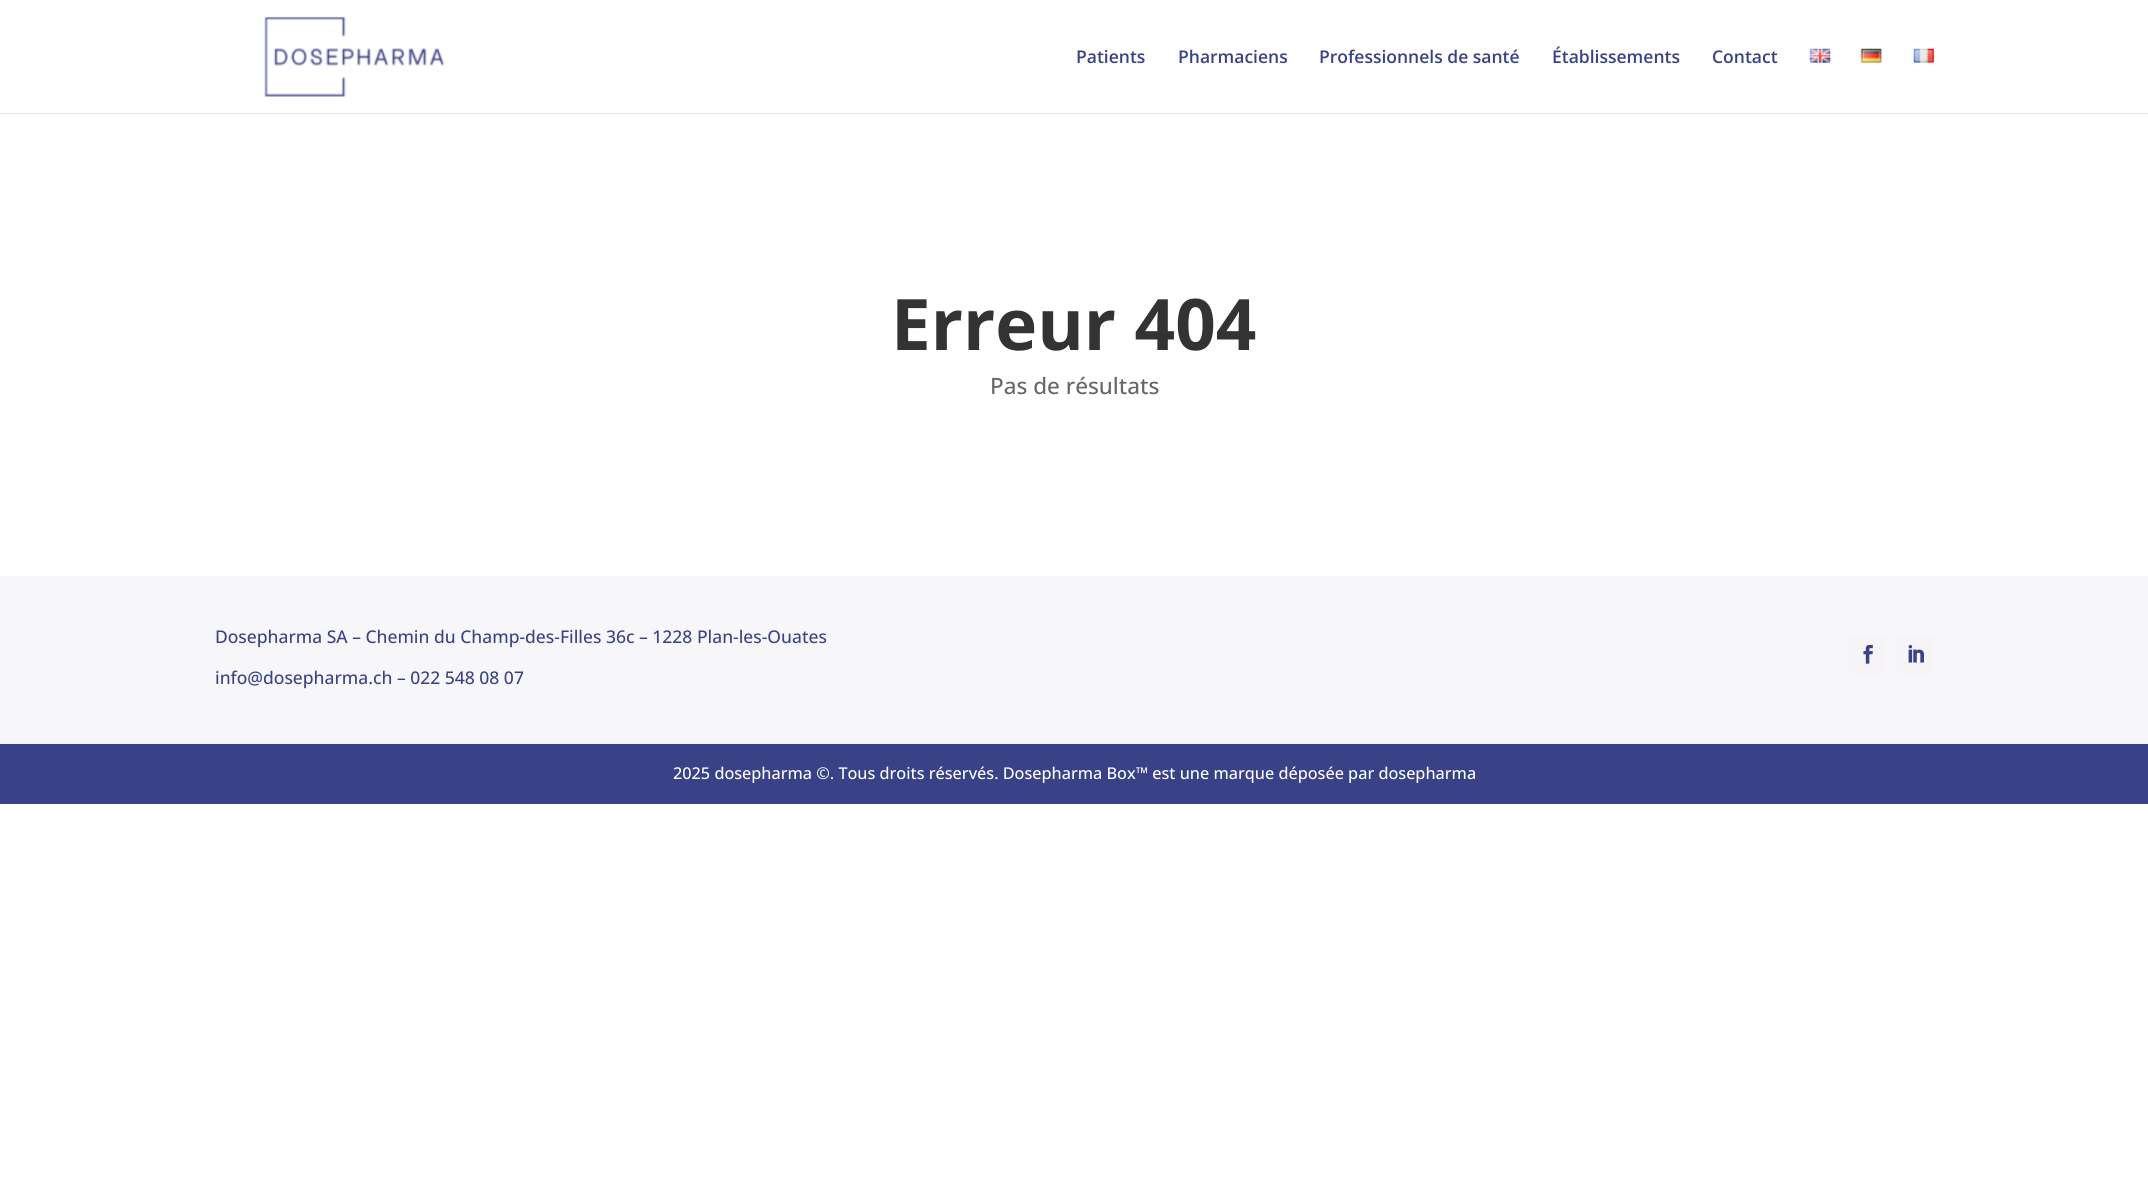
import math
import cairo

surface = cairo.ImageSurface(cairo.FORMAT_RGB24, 2148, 1185)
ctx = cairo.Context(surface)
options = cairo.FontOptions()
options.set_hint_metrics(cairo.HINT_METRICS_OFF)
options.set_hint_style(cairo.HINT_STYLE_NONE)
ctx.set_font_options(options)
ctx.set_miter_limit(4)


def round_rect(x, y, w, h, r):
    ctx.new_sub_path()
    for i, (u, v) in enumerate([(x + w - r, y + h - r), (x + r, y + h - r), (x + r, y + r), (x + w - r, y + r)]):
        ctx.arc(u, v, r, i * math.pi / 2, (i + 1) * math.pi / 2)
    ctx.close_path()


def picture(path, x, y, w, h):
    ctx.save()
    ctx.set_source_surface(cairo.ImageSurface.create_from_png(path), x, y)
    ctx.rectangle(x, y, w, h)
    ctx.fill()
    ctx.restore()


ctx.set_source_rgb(1, 1, 1)
ctx.paint()
ctx.set_source_rgb(0.902, 0.902, 0.902)
ctx.new_path()
ctx.move_to(0, 112)
ctx.line_to(0, 114)
ctx.line_to(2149, 114)
ctx.line_to(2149, 1)
ctx.line_to(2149, 112)
ctx.close_path()
ctx.fill()
ctx.set_source_rgb(1, 1, 1)
ctx.rectangle(0, 112, 2148, 1)
ctx.fill()
picture("img1.png", 264, 16, 181, 81)
ctx.select_font_face("Open Sans SemiBold")
ctx.set_font_size(17.5)
ctx.set_source_rgb(0.227, 0.259, 0.529)
ctx.move_to(1076, 63)
ctx.show_text("Patients")
ctx.move_to(1178, 63)
ctx.show_text("Pharmaciens")
ctx.move_to(1319, 63)
ctx.show_text("Professionnels de santé")
ctx.move_to(1552, 63)
ctx.show_text("Établissements")
ctx.move_to(1712, 63)
ctx.show_text("Contact")
picture("img2.png", 1809, 48, 22, 15)
picture("img3.png", 1860, 48, 22, 15)
picture("img4.png", 1913, 48, 21, 15)
ctx.select_font_face("Open Sans", cairo.FONT_SLANT_NORMAL, cairo.FONT_WEIGHT_BOLD)
ctx.set_font_size(71)
ctx.set_source_rgb(0.2, 0.2, 0.2)
ctx.move_to(891, 350)
ctx.show_text("Erreur 404")
ctx.select_font_face("Open Sans Medium")
ctx.set_font_size(22.5)
ctx.set_source_rgb(0.4, 0.4, 0.4)
ctx.move_to(990, 394)
ctx.show_text("Pas de résultats")
ctx.set_source_rgb(0.965, 0.965, 0.98)
ctx.rectangle(0, 576, 2148, 168)
ctx.fill()
ctx.set_font_size(17.5)
ctx.set_source_rgb(0.227, 0.259, 0.529)
ctx.move_to(215, 643)
ctx.show_text("Dosepharma SA – Chemin du Champ-des-Filles 36c – 1228 Plan-les-Ouates")
ctx.move_to(215, 684)
ctx.show_text("info@dosepharma.ch – 022 548 08 07")
ctx.set_source_rgb(0.961, 0.957, 0.961)
round_rect(1849, 636, 37, 38, 4)
ctx.fill()
picture("img5.png", 1863, 644, 10, 20)
round_rect(1896, 636, 38, 38, 4)
ctx.fill()
picture("img6.png", 1908, 644, 16, 19)
ctx.set_source_rgb(0.227, 0.259, 0.529)
ctx.rectangle(0, 744, 2148, 60)
ctx.fill()
ctx.set_font_size(16.25)
ctx.set_source_rgb(1, 1, 1)
ctx.move_to(673, 779)
ctx.show_text("2025 dosepharma ©. Tous droits réservés. Dosepharma Box™ est une marque déposée par dosepharma")
surface.write_to_png("page.png")
